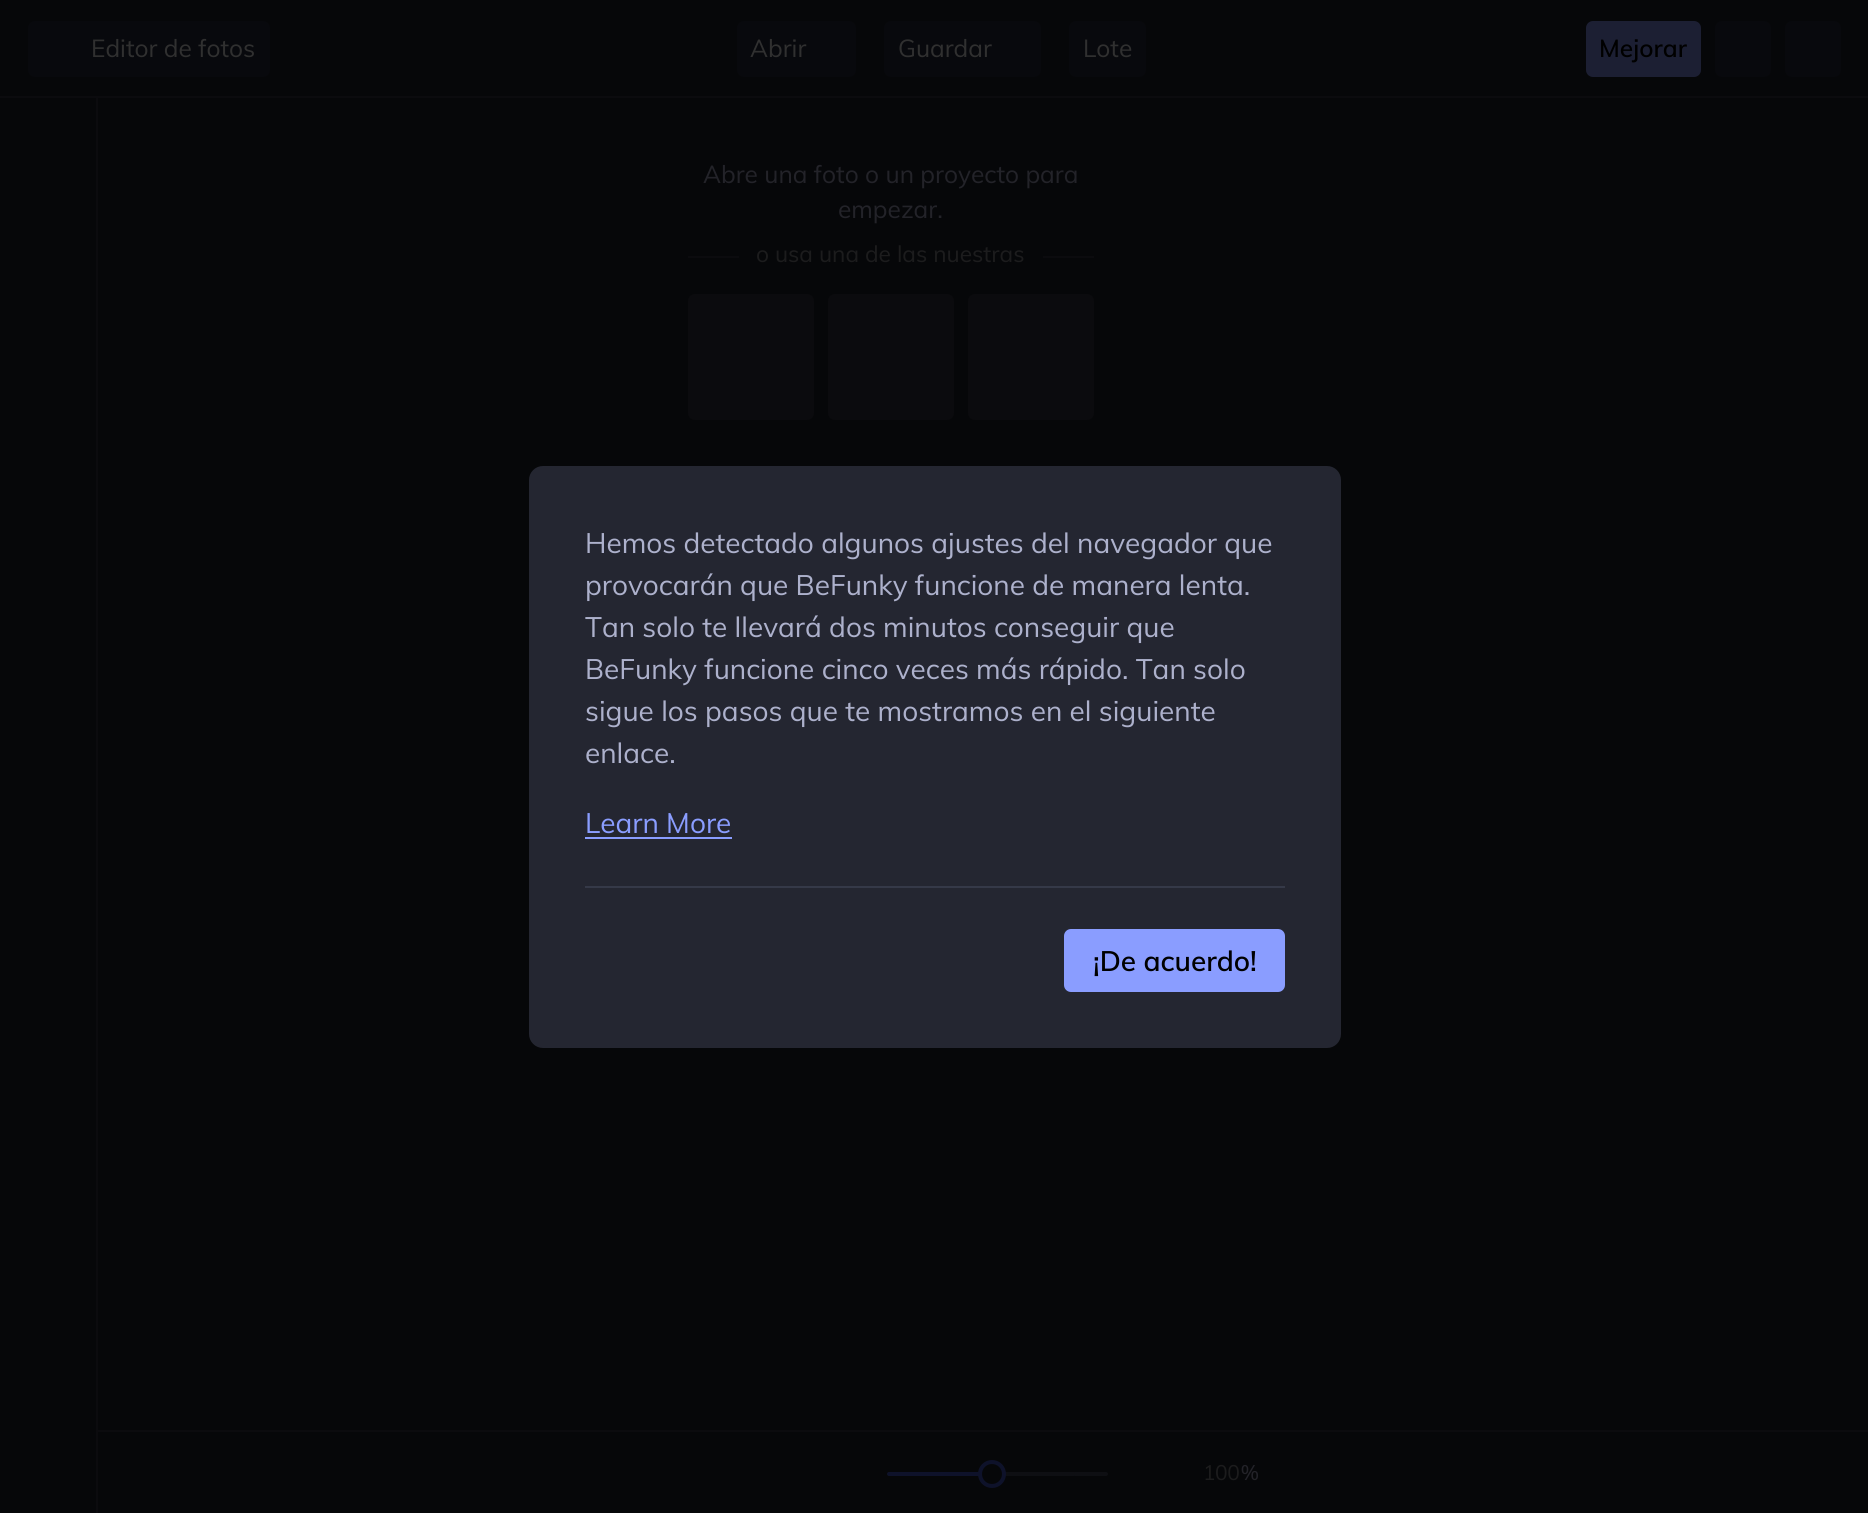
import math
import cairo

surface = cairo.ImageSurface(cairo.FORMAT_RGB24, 1868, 1513)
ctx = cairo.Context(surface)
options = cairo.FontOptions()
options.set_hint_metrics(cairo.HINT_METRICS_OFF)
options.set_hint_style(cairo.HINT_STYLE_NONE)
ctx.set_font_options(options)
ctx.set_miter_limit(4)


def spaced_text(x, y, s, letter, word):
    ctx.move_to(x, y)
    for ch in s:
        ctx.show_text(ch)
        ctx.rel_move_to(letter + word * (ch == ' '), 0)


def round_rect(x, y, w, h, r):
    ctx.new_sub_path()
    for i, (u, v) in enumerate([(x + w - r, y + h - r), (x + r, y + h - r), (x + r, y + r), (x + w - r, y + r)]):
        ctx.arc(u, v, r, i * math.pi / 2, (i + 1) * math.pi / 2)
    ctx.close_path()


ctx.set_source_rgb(0.027, 0.031, 0.039)
ctx.paint()
ctx.set_source_rgb(0.043, 0.043, 0.055)
ctx.rectangle(0, 96, 1868, 2)
ctx.fill()
ctx.set_source_rgb(0.035, 0.039, 0.051)
round_rect(28, 21, 242, 56, 7)
ctx.fill()
ctx.select_font_face("Mulish")
ctx.set_font_size(24.5)
ctx.set_source_rgb(0.188, 0.188, 0.188)
ctx.move_to(91, 57)
ctx.show_text("Editor de fotos")
ctx.set_source_rgb(0.035, 0.039, 0.051)
round_rect(737, 21, 119, 56, 7)
ctx.fill()
ctx.set_source_rgb(0.188, 0.188, 0.188)
ctx.move_to(750, 57)
ctx.show_text("Abrir")
ctx.set_source_rgb(0.035, 0.039, 0.051)
round_rect(884, 21, 157, 56, 7)
ctx.fill()
ctx.set_source_rgb(0.188, 0.188, 0.188)
ctx.move_to(898, 57)
ctx.show_text("Guardar")
ctx.set_source_rgb(0.035, 0.039, 0.051)
round_rect(1069, 21, 77, 56, 7)
ctx.fill()
ctx.set_source_rgb(0.188, 0.188, 0.188)
ctx.move_to(1083, 57)
ctx.show_text("Lote")
ctx.set_source_rgb(0.137, 0.137, 0.161)
ctx.move_to(703, 183)
ctx.show_text("Abre una foto o un proyecto para")
ctx.move_to(838, 218)
ctx.show_text("empezar.")
ctx.set_source_rgb(0.043, 0.043, 0.055)
ctx.rectangle(688, 256, 406, 2)
ctx.fill()
ctx.set_source_rgb(0.027, 0.031, 0.039)
ctx.rectangle(739, 256, 304, 2)
ctx.fill()
ctx.set_font_size(22.75)
ctx.set_source_rgb(0.11, 0.11, 0.114)
ctx.move_to(756, 262)
ctx.show_text("o usa una de las nuestras")
ctx.set_source_rgb(0.043, 0.043, 0.055)
round_rect(688, 294, 126, 126, 7)
ctx.fill()
round_rect(828, 294, 126, 126, 7)
ctx.fill()
round_rect(968, 294, 126, 126, 7)
ctx.fill()
ctx.set_source_rgb(0.11, 0.122, 0.2)
round_rect(1586, 21, 115, 56, 7)
ctx.fill()
ctx.select_font_face("Mulish SemiBold")
ctx.set_font_size(24.5)
ctx.set_source_rgb(0, 0, 0)
ctx.move_to(1599, 57)
ctx.show_text("Mejorar")
ctx.set_source_rgb(0.035, 0.039, 0.051)
round_rect(1715, 21, 56, 56, 7)
ctx.fill()
round_rect(1785, 21, 56, 56, 7)
ctx.fill()
ctx.set_source_rgb(0.043, 0.043, 0.055)
ctx.rectangle(96, 98, 2, 1415)
ctx.fill()
ctx.rectangle(98, 1430, 1770, 2)
ctx.fill()
ctx.set_source_rgb(0.055, 0.071, 0.165)
round_rect(887, 1472, 28, 4, 2)
ctx.fill()
ctx.set_source_rgb(0.055, 0.059, 0.075)
round_rect(1073, 1472, 35, 4, 2)
ctx.fill()
ctx.rectangle(1005, 1472, 69, 4)
ctx.fill()
ctx.set_source_rgb(0.055, 0.071, 0.165)
ctx.rectangle(913, 1472, 66, 4)
ctx.fill()
ctx.set_source_rgb(0.027, 0.031, 0.039)
ctx.arc(992, 1474, 12, 0, 2 * math.pi)
ctx.fill_preserve()
ctx.set_source_rgb(0.055, 0.071, 0.165)
ctx.set_line_width(4)
ctx.stroke()
ctx.select_font_face("Mulish")
ctx.set_font_size(21)
ctx.set_source_rgb(0.11, 0.11, 0.114)
spaced_text(1203, 1480, "100", -0.5, 0)
ctx.set_source_rgb(0.137, 0.137, 0.161)
spaced_text(1241, 1480, "%", -1, 0)
ctx.set_source_rgb(0.141, 0.149, 0.192)
round_rect(529, 466, 812, 582, 14)
ctx.fill()
ctx.set_font_size(28)
ctx.set_source_rgb(0.678, 0.694, 0.8)
ctx.move_to(585, 553)
ctx.show_text("Hemos detectado algunos ajustes del navegador que")
ctx.move_to(585, 595)
ctx.show_text("provocarán que BeFunky funcione de manera lenta.")
ctx.move_to(585, 637)
ctx.show_text("Tan solo te llevará dos minutos conseguir que")
ctx.move_to(585, 679)
ctx.show_text("BeFunky funcione cinco veces más rápido. Tan solo")
ctx.move_to(585, 721)
ctx.show_text("sigue los pasos que te mostramos en el siguiente")
ctx.move_to(585, 763)
ctx.show_text("enlace.")
ctx.set_source_rgb(0.541, 0.616, 1)
ctx.move_to(585, 833)
ctx.show_text("Learn More")
ctx.rectangle(585, 837, 147, 2)
ctx.fill()
ctx.set_source_rgb(0.208, 0.224, 0.282)
ctx.rectangle(585, 886, 700, 2)
ctx.fill()
ctx.set_source_rgb(0.541, 0.616, 1)
round_rect(1064, 929, 221, 63, 7)
ctx.fill()
ctx.select_font_face("Mulish SemiBold")
ctx.set_source_rgb(0, 0, 0)
ctx.move_to(1093, 971)
ctx.show_text("¡De acuerdo!")
surface.write_to_png("page.png")
